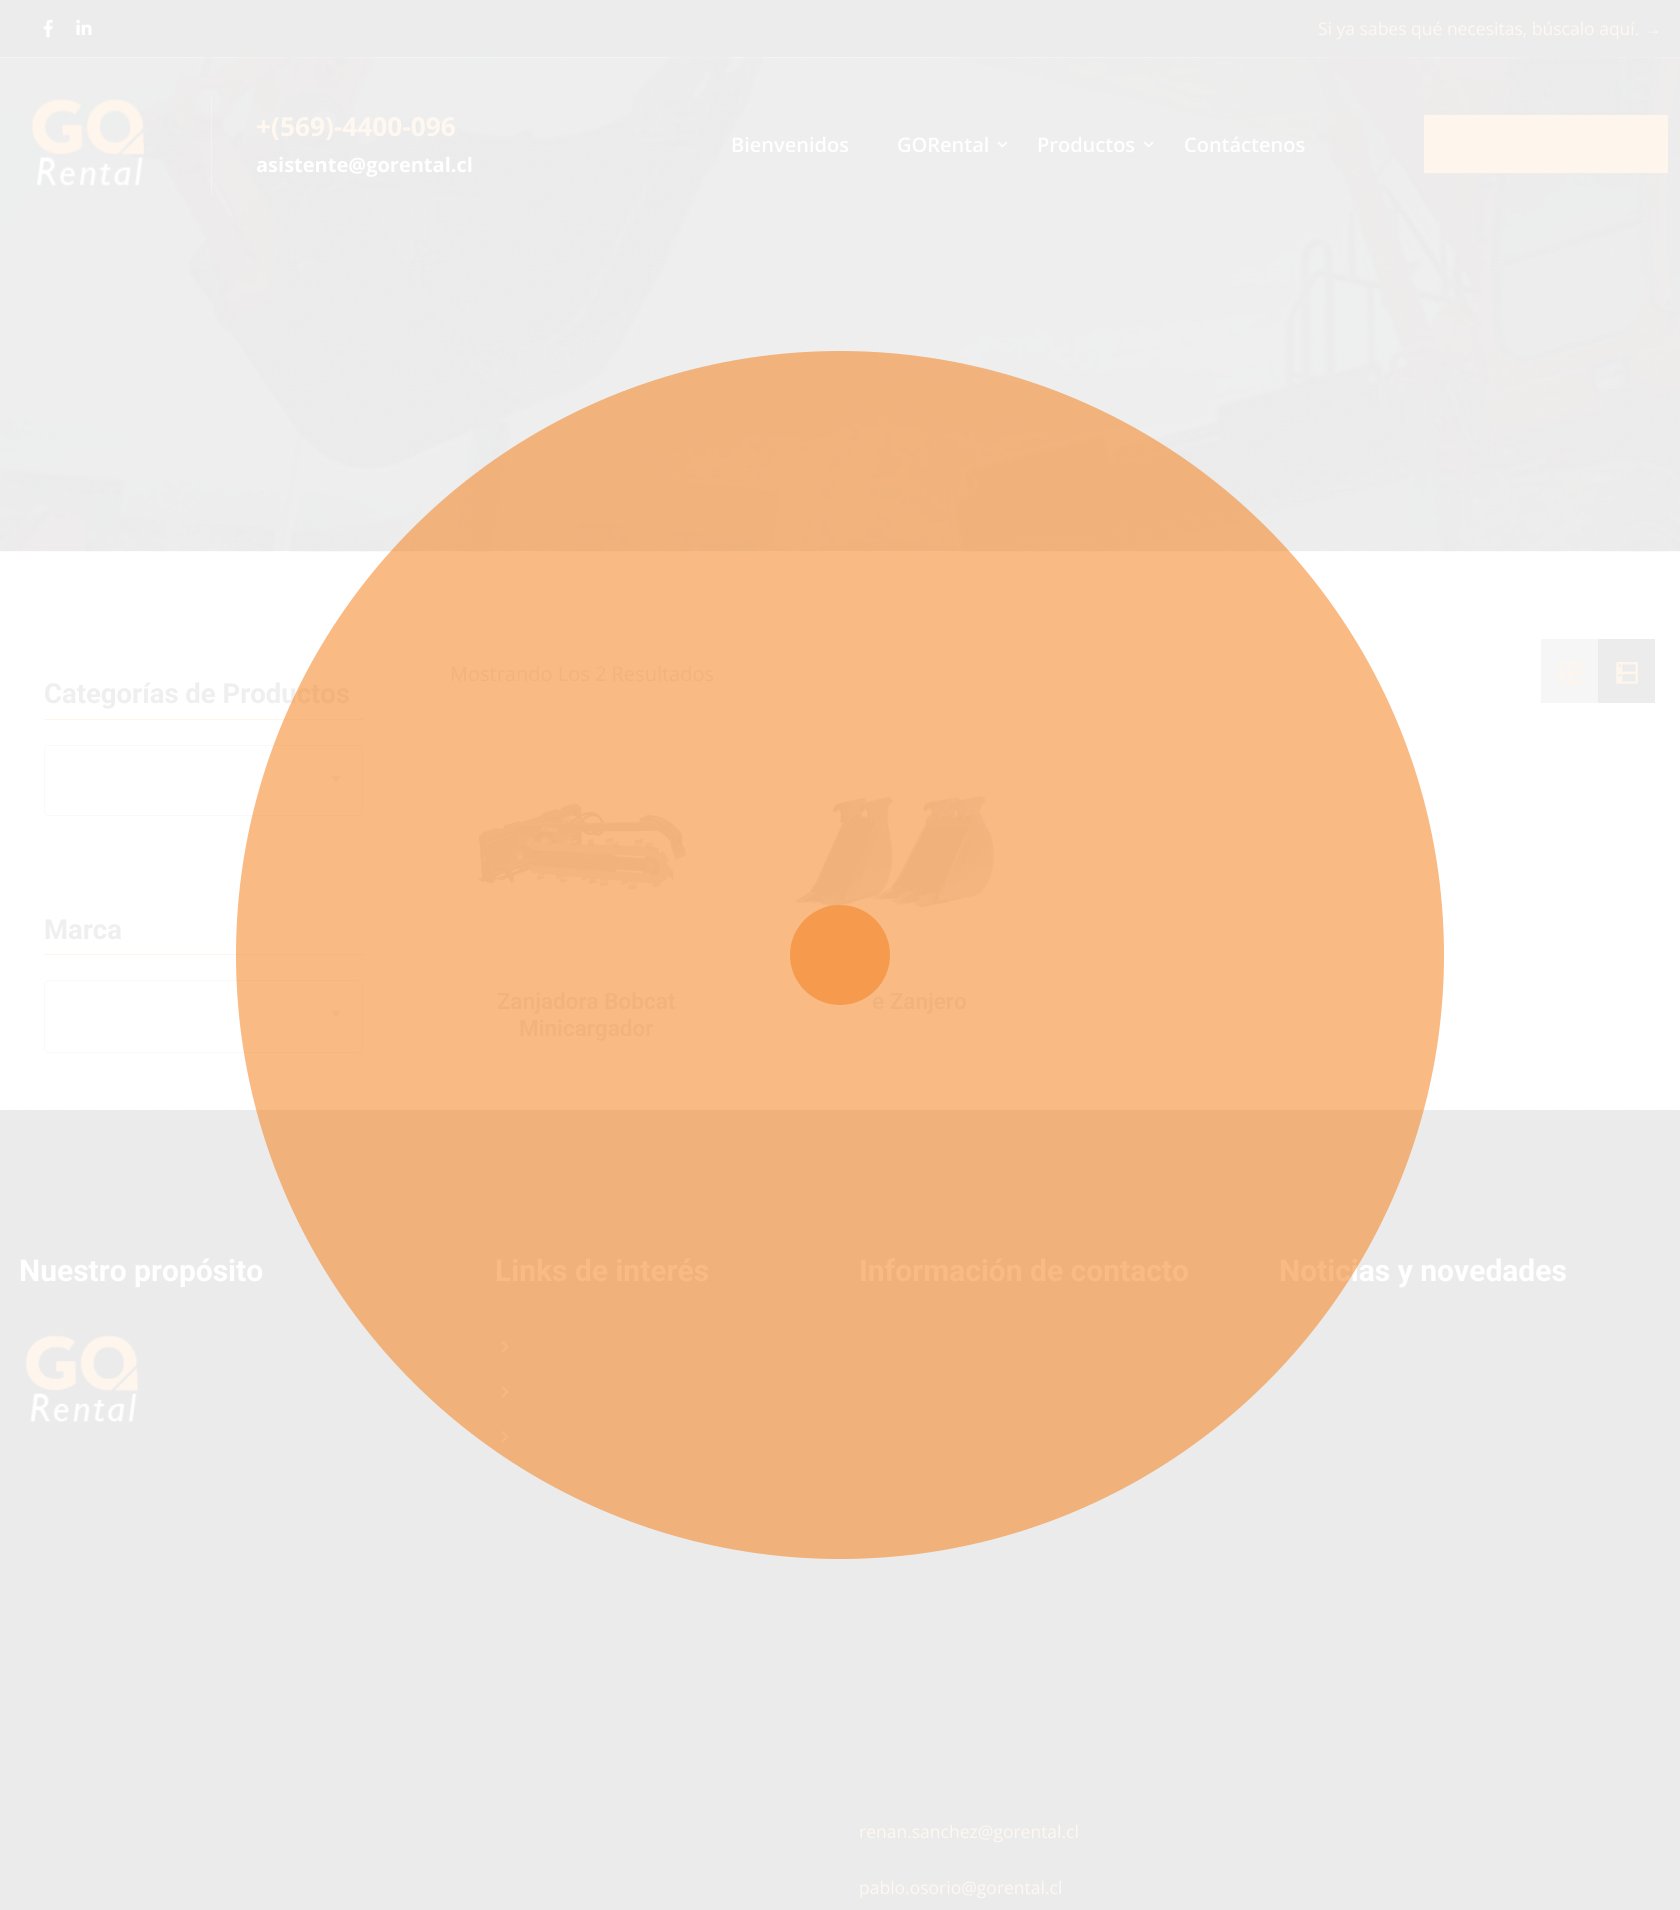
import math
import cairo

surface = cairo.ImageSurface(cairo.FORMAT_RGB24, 1680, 1910)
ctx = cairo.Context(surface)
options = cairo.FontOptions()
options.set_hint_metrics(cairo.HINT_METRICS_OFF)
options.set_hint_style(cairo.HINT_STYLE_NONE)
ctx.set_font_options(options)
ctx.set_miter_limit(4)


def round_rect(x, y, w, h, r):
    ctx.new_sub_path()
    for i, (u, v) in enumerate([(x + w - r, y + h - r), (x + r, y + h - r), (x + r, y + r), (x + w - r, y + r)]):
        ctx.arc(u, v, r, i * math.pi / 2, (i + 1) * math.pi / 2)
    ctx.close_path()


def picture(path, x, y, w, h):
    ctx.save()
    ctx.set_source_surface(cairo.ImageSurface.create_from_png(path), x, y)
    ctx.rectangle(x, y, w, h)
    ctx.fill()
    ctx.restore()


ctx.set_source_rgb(1, 1, 1)
ctx.paint()
ctx.set_source_rgb(0.925, 0.925, 0.925)
ctx.rectangle(0, 0, 1680, 58)
ctx.fill()
picture("img1.png", 43, 19, 10, 19)
picture("img2.png", 76, 19, 16, 16)
ctx.select_font_face("Open Sans")
ctx.set_font_size(17.5)
ctx.set_source_rgb(0.996, 0.969, 0.945)
ctx.move_to(1318, 35)
ctx.show_text("Si ya sabes qué necesitas, búscalo aquí.")
ctx.select_font_face("Liberation Serif")
ctx.move_to(1644, 35)
ctx.show_text("→")
picture("img3.png", 0, 57, 1680, 495)
picture("img4.png", 0, 57, 1680, 495)
ctx.set_source_rgba(1, 1, 1, 0.3)
ctx.rectangle(211, 95, 1, 99)
ctx.fill()
picture("img5.png", 31, 98, 115, 88)
ctx.select_font_face("Open Sans", cairo.FONT_SLANT_NORMAL, cairo.FONT_WEIGHT_BOLD)
ctx.set_font_size(26.25)
ctx.set_source_rgb(0.996, 0.969, 0.945)
ctx.move_to(256, 136)
ctx.show_text("+(569)-4400-096")
ctx.set_font_size(20)
ctx.set_source_rgb(1, 1, 1)
ctx.move_to(256, 172)
ctx.show_text("asistente@gorental.cl")
ctx.select_font_face("Open Sans SemiBold")
ctx.move_to(731, 152)
ctx.show_text("Bienvenidos")
ctx.move_to(897, 152)
ctx.show_text("GORental")
picture("img6.png", 997, 141, 11, 7)
ctx.move_to(1037, 152)
ctx.show_text("Productos")
picture("img7.png", 1143, 141, 11, 7)
ctx.move_to(1184, 152)
ctx.show_text("Contáctenos")
ctx.set_source_rgb(0.996, 0.961, 0.929)
ctx.rectangle(1424, 115, 244, 58)
ctx.fill()
ctx.select_font_face("Roboto", cairo.FONT_SLANT_NORMAL, cairo.FONT_WEIGHT_BOLD)
ctx.set_font_size(27.5)
ctx.set_source_rgb(0.937, 0.937, 0.937)
ctx.move_to(44, 703)
ctx.show_text("Categorías de Productos")
ctx.set_source_rgb(0.996, 0.961, 0.929)
ctx.rectangle(44, 719, 319, 1)
ctx.fill()
round_rect(44.5, 745.5, 318, 70, 4.5)
ctx.set_source_rgb(0.973, 0.973, 0.973)
ctx.set_line_width(1)
ctx.stroke()
ctx.set_source_rgb(0.961, 0.961, 0.961)
ctx.new_path()
ctx.move_to(331, 776)
ctx.line_to(341, 776)
ctx.line_to(336, 782.5)
ctx.close_path()
ctx.fill()
ctx.set_source_rgb(0.937, 0.937, 0.937)
ctx.move_to(44, 939)
ctx.show_text("Marca")
ctx.set_source_rgb(0.996, 0.961, 0.929)
ctx.rectangle(44, 954, 319, 1)
ctx.fill()
round_rect(44.5, 980.5, 318, 72, 4.5)
ctx.set_source_rgb(0.973, 0.973, 0.973)
ctx.stroke()
ctx.set_source_rgb(0.961, 0.961, 0.961)
ctx.new_path()
ctx.move_to(331, 1011)
ctx.line_to(341, 1011)
ctx.line_to(336, 1017.5)
ctx.close_path()
ctx.fill()
ctx.select_font_face("Open Sans")
ctx.set_font_size(20)
ctx.set_source_rgb(0.937, 0.937, 0.937)
ctx.move_to(450, 681)
ctx.show_text("Mostrando Los 2 Resultados")
ctx.set_source_rgb(0.961, 0.961, 0.961)
ctx.rectangle(1541, 639, 57, 64)
ctx.fill()
picture("img8.png", 1560, 662, 22, 22)
ctx.set_source_rgb(0.922, 0.922, 0.922)
ctx.rectangle(1598, 639, 57, 64)
ctx.fill()
picture("img9.png", 1616, 662, 22, 22)
picture("img10.png", 478, 803, 209, 88)
ctx.select_font_face("Roboto SemiBold")
ctx.set_font_size(22.5)
ctx.set_source_rgb(0.937, 0.937, 0.937)
ctx.move_to(497, 1009)
ctx.show_text("Zanjadora Bobcat")
ctx.move_to(519, 1036)
ctx.show_text("Minicargador")
picture("img11.png", 763, 729, 269, 234)
ctx.move_to(872, 1009)
ctx.show_text("e Zanjero")
picture("img12.png", 0, 1110, 1680, 800)
ctx.select_font_face("Roboto", cairo.FONT_SLANT_NORMAL, cairo.FONT_WEIGHT_BOLD)
ctx.set_font_size(30)
ctx.set_source_rgb(1, 1, 1)
ctx.move_to(19, 1281)
ctx.show_text("Nuestro propósito")
picture("img13.png", 25, 1335, 114, 87)
ctx.move_to(495, 1281)
ctx.show_text("Links de interés")
picture("img14.png", 501, 1340, 8, 13)
picture("img15.png", 501, 1385, 8, 13)
picture("img16.png", 501, 1430, 8, 13)
ctx.move_to(859, 1281)
ctx.show_text("Información de contacto")
ctx.select_font_face("Open Sans")
ctx.set_font_size(17.5)
ctx.set_source_rgb(0.996, 0.969, 0.945)
ctx.move_to(859, 1838)
ctx.show_text("renan.sanchez@gorental.cl")
ctx.move_to(859, 1894)
ctx.show_text("pablo.osorio@gorental.cl")
ctx.select_font_face("Roboto", cairo.FONT_SLANT_NORMAL, cairo.FONT_WEIGHT_BOLD)
ctx.set_font_size(30)
ctx.set_source_rgb(1, 1, 1)
ctx.move_to(1279, 1281)
ctx.show_text("Noticias y novedades")
ctx.set_source_rgba(0.957, 0.506, 0.125, 0.55)
ctx.new_path()
ctx.arc(840, 955, 604, 0, 2 * math.pi)
ctx.fill()
ctx.arc(840, 955, 50, 0, 2 * math.pi)
ctx.fill()
surface.write_to_png("page.png")
